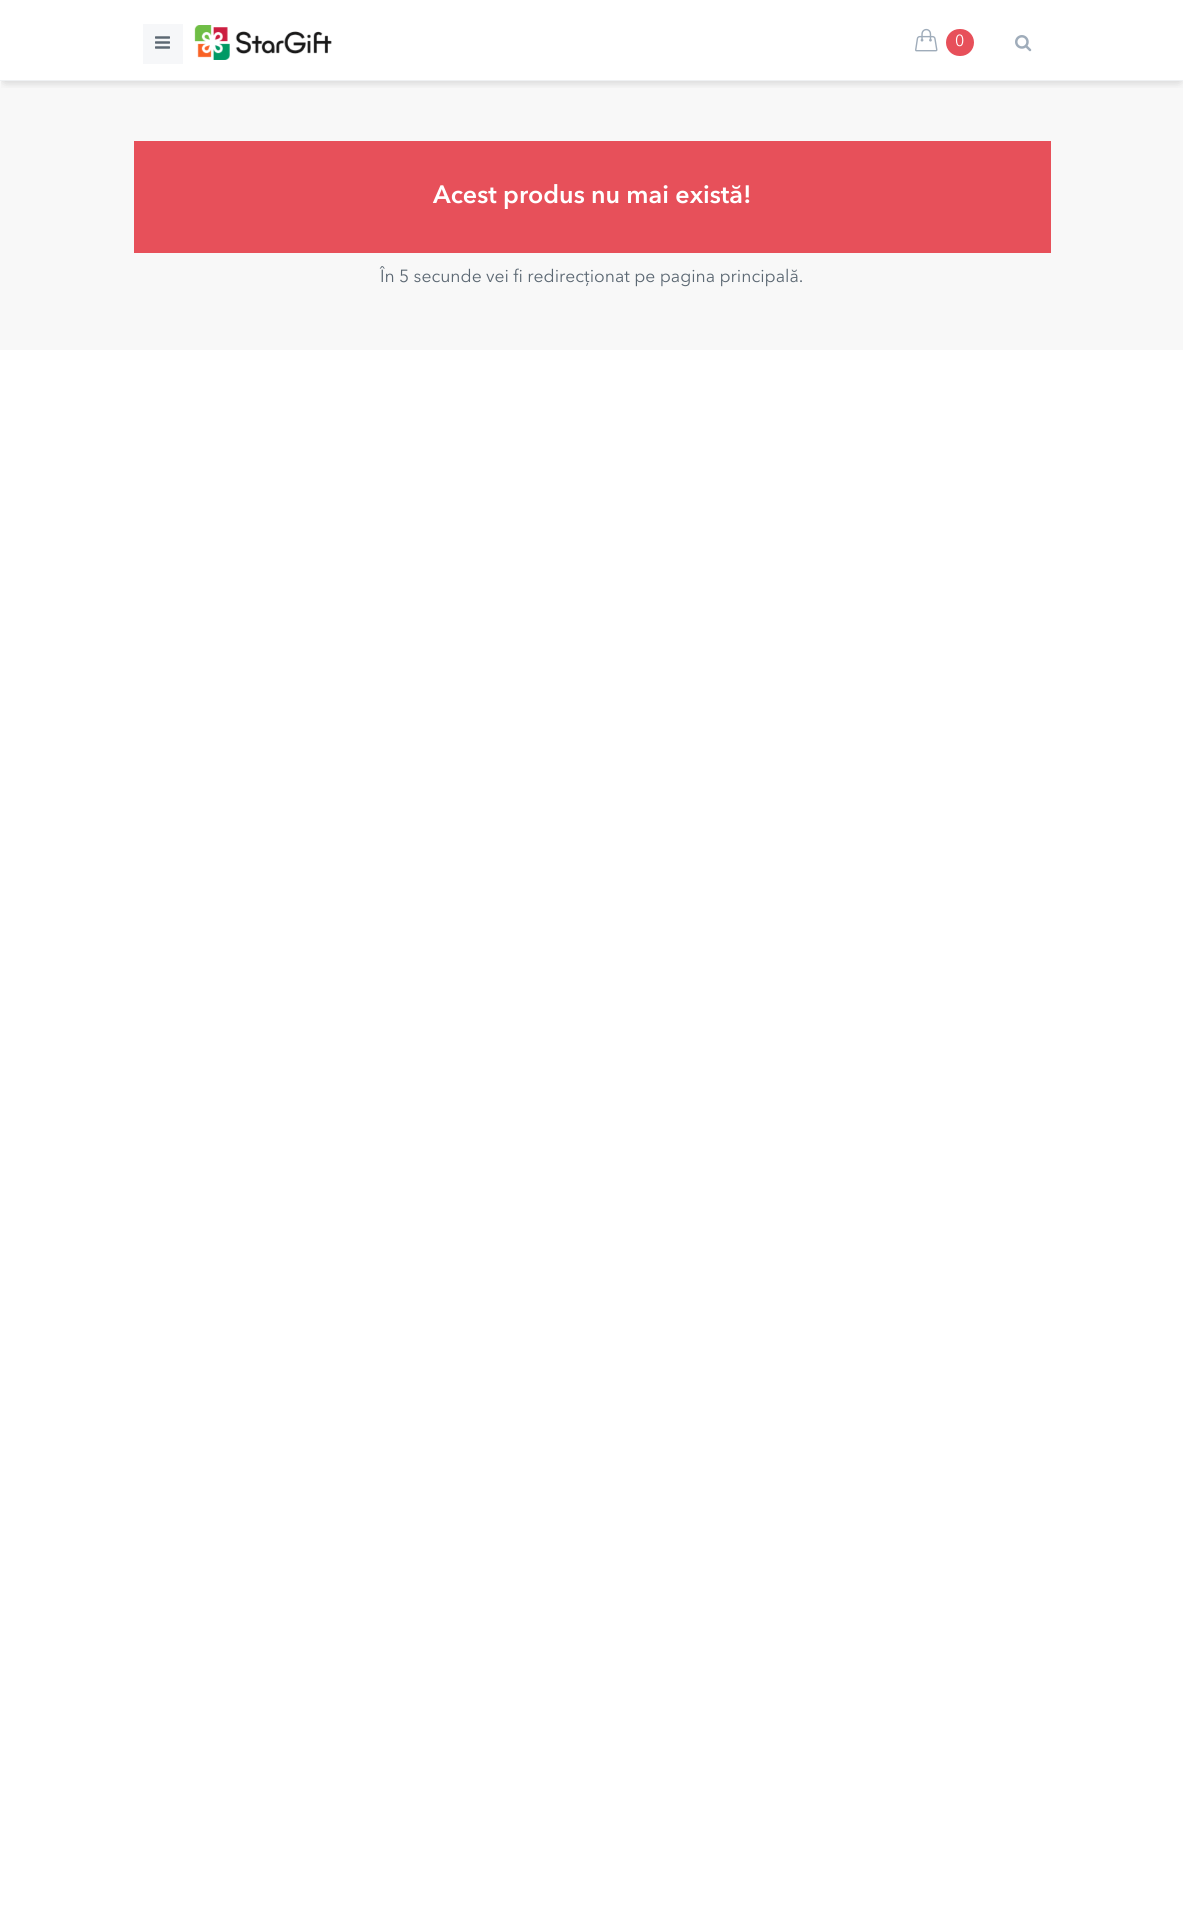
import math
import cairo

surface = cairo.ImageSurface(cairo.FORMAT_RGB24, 1183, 1928)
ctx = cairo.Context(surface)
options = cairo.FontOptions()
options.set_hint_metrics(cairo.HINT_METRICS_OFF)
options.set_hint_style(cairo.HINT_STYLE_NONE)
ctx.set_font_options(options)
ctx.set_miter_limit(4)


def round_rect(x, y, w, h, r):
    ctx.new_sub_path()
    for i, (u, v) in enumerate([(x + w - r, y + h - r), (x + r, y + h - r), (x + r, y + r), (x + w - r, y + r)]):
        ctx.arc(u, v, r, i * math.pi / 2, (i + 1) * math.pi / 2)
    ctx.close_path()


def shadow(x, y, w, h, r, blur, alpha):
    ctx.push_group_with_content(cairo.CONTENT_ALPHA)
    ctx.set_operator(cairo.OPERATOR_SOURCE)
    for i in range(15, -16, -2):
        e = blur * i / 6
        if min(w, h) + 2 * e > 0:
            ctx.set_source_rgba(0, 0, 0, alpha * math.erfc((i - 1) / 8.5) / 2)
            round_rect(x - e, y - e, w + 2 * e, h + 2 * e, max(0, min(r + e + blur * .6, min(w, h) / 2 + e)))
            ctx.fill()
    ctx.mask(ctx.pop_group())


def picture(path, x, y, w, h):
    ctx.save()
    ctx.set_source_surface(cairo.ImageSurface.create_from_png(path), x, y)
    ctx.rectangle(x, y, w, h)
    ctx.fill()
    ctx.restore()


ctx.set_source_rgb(1, 1, 1)
ctx.paint()
ctx.set_source_rgb(0.969, 0.969, 0.969)
ctx.rectangle(0, 81, 1183, 269)
ctx.fill()
ctx.save()
ctx.rectangle(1, 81, 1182, 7)
ctx.clip()
ctx.set_source_rgb(0, 0, 0)
shadow(5, 9, 1174, 71, 0, 5.5, 0.25)
ctx.restore()
ctx.set_source_rgb(0.937, 0.945, 0.953)
ctx.rectangle(0, 80, 1183, 1)
ctx.fill()
ctx.set_source_rgb(0.961, 0.965, 0.973)
ctx.rectangle(143, 24, 40, 40)
ctx.fill()
picture("img1.png", 155, 36, 15, 13)
picture("img2.png", 194, 25, 138, 35)
picture("img3.png", 915, 28, 23, 24)
ctx.set_source_rgb(0.906, 0.314, 0.353)
round_rect(946, 29, 28, 27, 13.5)
ctx.fill()
ctx.select_font_face("Avenir Next")
ctx.set_font_size(16)
ctx.set_source_rgb(1, 1, 1)
ctx.move_to(955, 46)
ctx.show_text("0")
picture("img4.png", 1015, 35, 17, 17)
ctx.set_source_rgb(0.906, 0.314, 0.353)
ctx.rectangle(134, 141, 917, 112)
ctx.fill()
ctx.select_font_face("Avenir Next SemiBold")
ctx.set_font_size(25)
ctx.set_source_rgb(1, 1, 1)
ctx.move_to(433, 203)
ctx.show_text("Acest produs nu mai există!")
ctx.select_font_face("Avenir Next")
ctx.set_font_size(17.5)
ctx.set_source_rgb(0.361, 0.408, 0.451)
ctx.move_to(380, 282)
ctx.show_text("În 5 secunde vei fi redirecționat pe pagina principală.")
surface.write_to_png("page.png")
